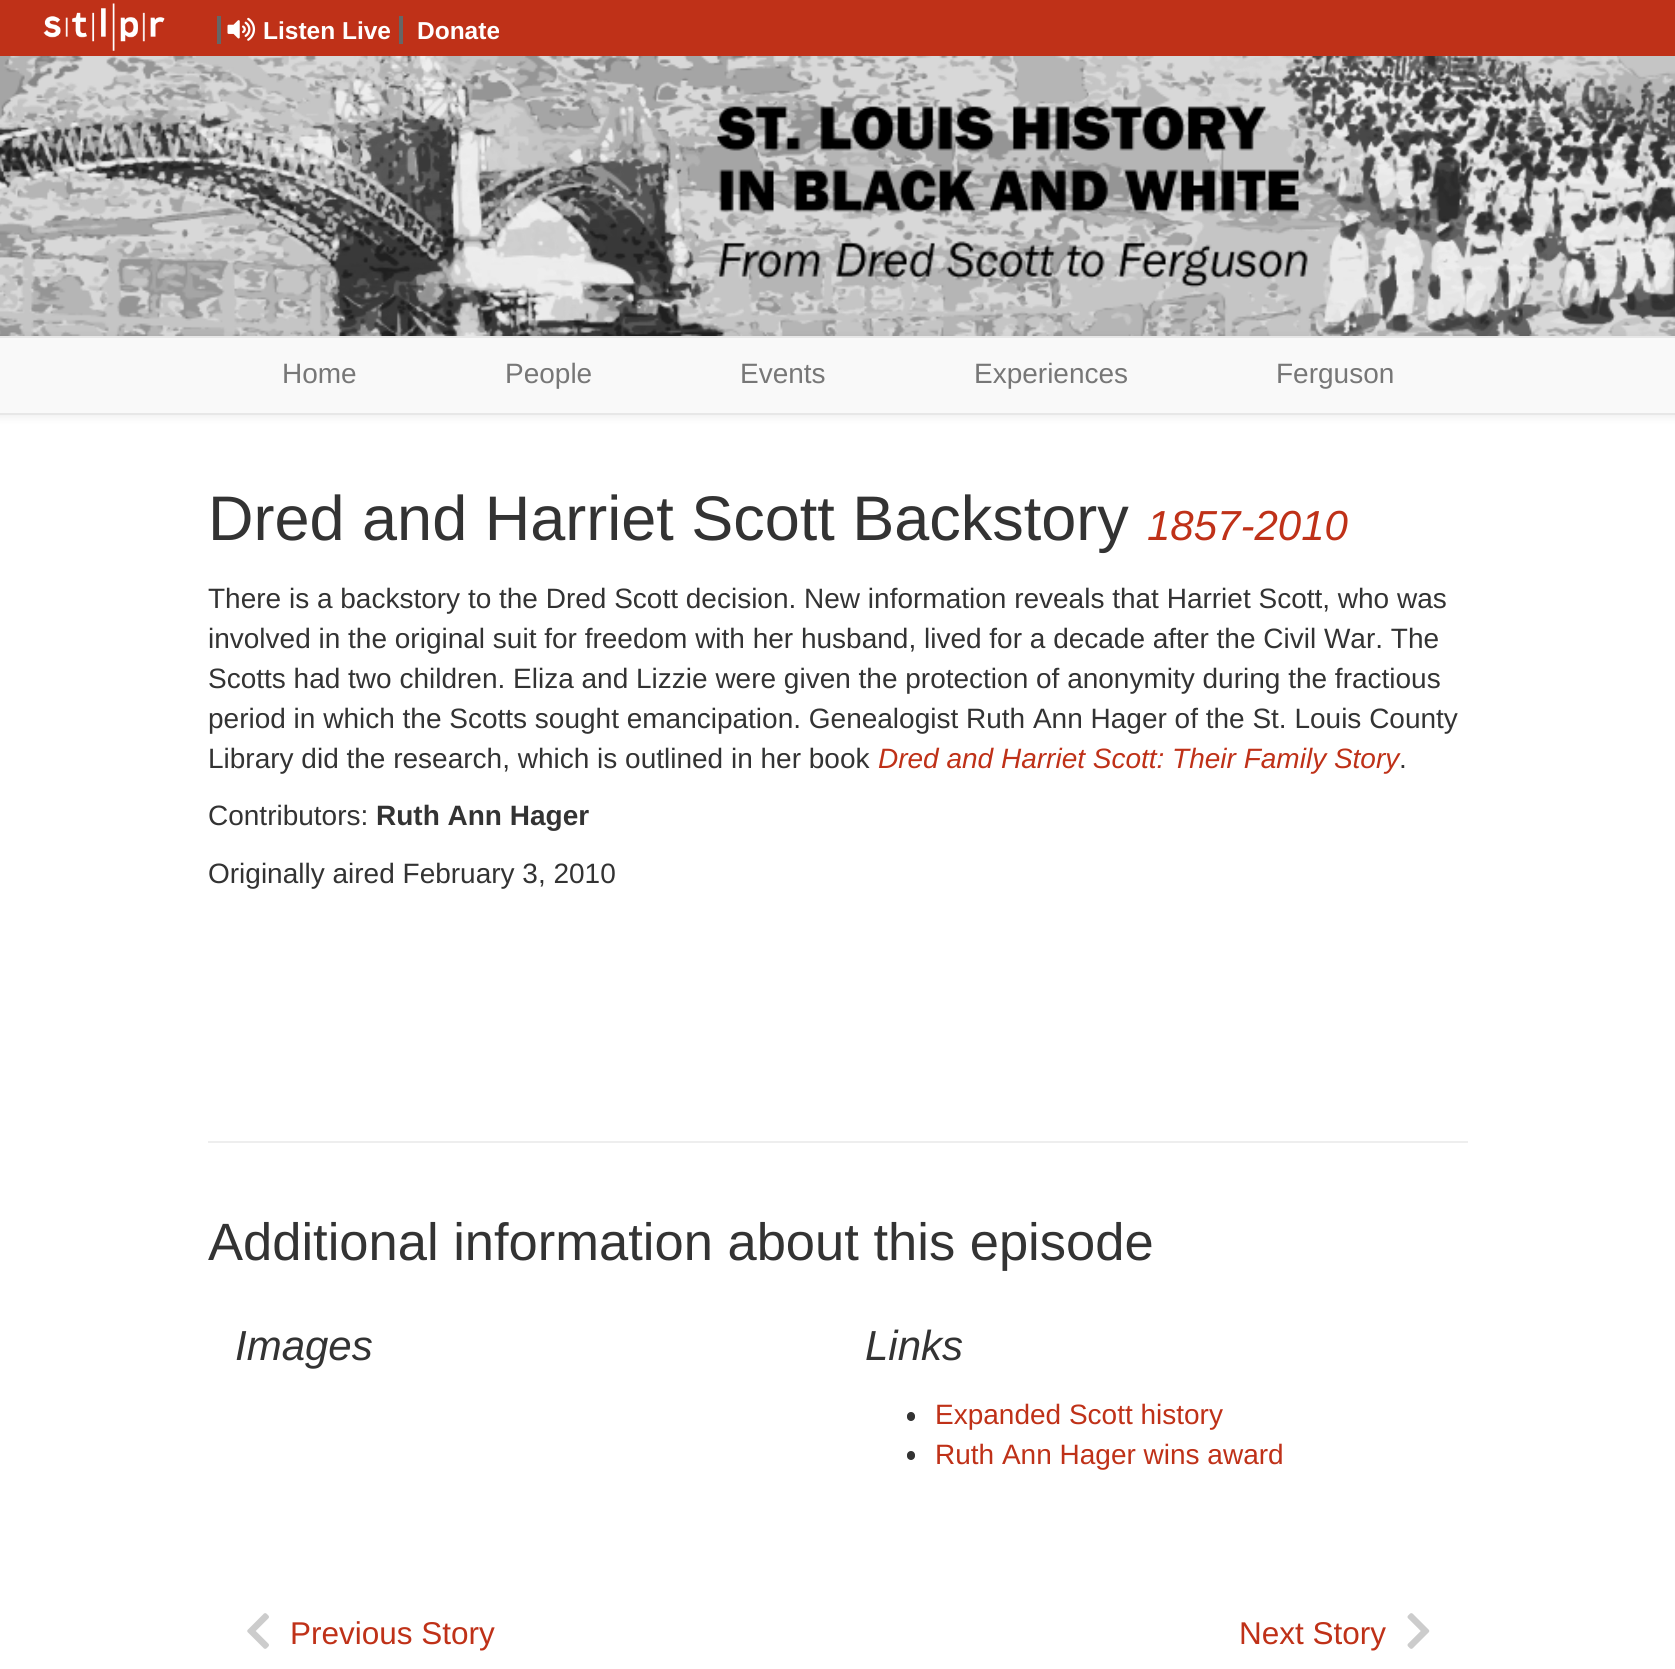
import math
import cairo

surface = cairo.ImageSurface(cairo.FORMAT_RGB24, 1675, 1669)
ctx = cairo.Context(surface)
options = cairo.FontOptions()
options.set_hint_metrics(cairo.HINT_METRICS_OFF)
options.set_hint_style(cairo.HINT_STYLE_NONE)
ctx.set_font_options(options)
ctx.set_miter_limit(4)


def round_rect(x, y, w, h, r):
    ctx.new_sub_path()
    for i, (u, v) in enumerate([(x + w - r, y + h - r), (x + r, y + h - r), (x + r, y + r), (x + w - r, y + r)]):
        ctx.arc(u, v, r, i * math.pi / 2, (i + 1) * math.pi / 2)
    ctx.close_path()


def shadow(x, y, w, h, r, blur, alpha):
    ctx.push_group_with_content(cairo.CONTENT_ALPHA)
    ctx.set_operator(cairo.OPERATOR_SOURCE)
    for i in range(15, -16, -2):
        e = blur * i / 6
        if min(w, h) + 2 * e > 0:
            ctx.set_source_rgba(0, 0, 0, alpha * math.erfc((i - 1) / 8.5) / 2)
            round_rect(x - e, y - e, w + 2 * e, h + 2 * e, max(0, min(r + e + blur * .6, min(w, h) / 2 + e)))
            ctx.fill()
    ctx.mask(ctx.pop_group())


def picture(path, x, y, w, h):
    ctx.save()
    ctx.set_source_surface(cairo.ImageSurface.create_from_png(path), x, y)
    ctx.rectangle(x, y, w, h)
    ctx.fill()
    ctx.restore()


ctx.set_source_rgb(1, 1, 1)
ctx.paint()
ctx.set_source_rgb(0.847, 0.847, 0.847)
ctx.rectangle(0, 56, 1675, 280)
ctx.fill()
picture("img1.png", 0, 56, 1675, 280)
ctx.set_source_rgb(0.749, 0.192, 0.094)
ctx.rectangle(0, 0, 1675, 56)
ctx.fill()
picture("img2.png", 43, 3, 122, 48)
ctx.set_source_rgb(0.4, 0.4, 0.4)
ctx.rectangle(217, 16, 4, 28)
ctx.fill()
ctx.rectangle(399, 16, 4, 28)
ctx.fill()
picture("img3.png", 227, 17, 29, 24)
ctx.select_font_face("Liberation Sans", cairo.FONT_SLANT_NORMAL, cairo.FONT_WEIGHT_BOLD)
ctx.set_font_size(24.5)
ctx.set_source_rgb(1, 1, 1)
ctx.move_to(263, 39)
ctx.show_text("Listen Live")
ctx.move_to(417, 39)
ctx.show_text("Donate")
ctx.set_source_rgb(0, 0, 0)
shadow(-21, 338, 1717, 79, 7, 4.5, 0.07)
ctx.set_source_rgb(0.973, 0.973, 0.973)
ctx.rectangle(0, 338, 1675, 75)
ctx.fill()
ctx.set_source_rgb(0.906, 0.906, 0.906)
ctx.rectangle(0, 336, 1675, 2)
ctx.fill()
ctx.rectangle(0, 413, 1675, 2)
ctx.fill()
ctx.select_font_face("Liberation Sans")
ctx.set_font_size(28)
ctx.set_source_rgb(0.467, 0.467, 0.467)
ctx.move_to(282, 383)
ctx.show_text("Home")
ctx.move_to(505, 383)
ctx.show_text("People")
ctx.move_to(740, 383)
ctx.show_text("Events")
ctx.move_to(974, 383)
ctx.show_text("Experiences")
ctx.move_to(1276, 383)
ctx.show_text("Ferguson")
ctx.set_font_size(63)
ctx.set_source_rgb(0.2, 0.2, 0.2)
ctx.move_to(208, 540)
ctx.show_text("Dred and Harriet Scott Backstory")
ctx.select_font_face("Liberation Sans", cairo.FONT_SLANT_ITALIC)
ctx.set_font_size(42)
ctx.set_source_rgb(0.749, 0.192, 0.094)
ctx.move_to(1147, 540)
ctx.show_text("1857-2010")
ctx.select_font_face("Liberation Sans")
ctx.set_font_size(28)
ctx.set_source_rgb(0.2, 0.2, 0.2)
ctx.move_to(208, 608)
ctx.show_text("There is a backstory to the Dred Scott decision. New information reveals that Harriet Scott, who was")
ctx.move_to(208, 648)
ctx.show_text("involved in the original suit for freedom with her husband, lived for a decade after the Civil War. The")
ctx.move_to(208, 688)
ctx.show_text("Scotts had two children. Eliza and Lizzie were given the protection of anonymity during the fractious")
ctx.move_to(208, 728)
ctx.show_text("period in which the Scotts sought emancipation. Genealogist Ruth Ann Hager of the St. Louis County")
ctx.move_to(208, 768)
ctx.show_text("Library did the research, which is outlined in her book")
ctx.select_font_face("Liberation Sans", cairo.FONT_SLANT_ITALIC)
ctx.set_source_rgb(0.749, 0.192, 0.094)
ctx.move_to(878, 768)
ctx.show_text("Dred and Harriet Scott: Their Family Story")
ctx.select_font_face("Liberation Sans")
ctx.set_source_rgb(0.2, 0.2, 0.2)
ctx.move_to(1399, 768)
ctx.show_text(".")
ctx.move_to(208, 825)
ctx.show_text("Contributors:")
ctx.select_font_face("Liberation Sans", cairo.FONT_SLANT_NORMAL, cairo.FONT_WEIGHT_BOLD)
ctx.move_to(376, 825)
ctx.show_text("Ruth Ann Hager")
ctx.select_font_face("Liberation Sans")
ctx.move_to(208, 883)
ctx.show_text("Originally aired February 3, 2010")
ctx.set_source_rgb(0.933, 0.933, 0.933)
ctx.rectangle(208, 1141, 1260, 2)
ctx.fill()
ctx.set_font_size(52.5)
ctx.set_source_rgb(0.2, 0.2, 0.2)
ctx.move_to(208, 1260)
ctx.show_text("Additional information about this episode")
ctx.select_font_face("Liberation Sans", cairo.FONT_SLANT_ITALIC)
ctx.set_font_size(42)
ctx.move_to(235, 1360)
ctx.show_text("Images")
ctx.move_to(865, 1360)
ctx.show_text("Links")
round_rect(907, 1412, 8, 9, 4)
ctx.fill()
ctx.select_font_face("Liberation Sans")
ctx.set_font_size(28)
ctx.set_source_rgb(0.749, 0.192, 0.094)
ctx.move_to(935, 1424)
ctx.show_text("Expanded Scott history")
ctx.set_source_rgb(0.2, 0.2, 0.2)
round_rect(907, 1451, 8, 9, 4)
ctx.fill()
ctx.set_source_rgb(0.749, 0.192, 0.094)
ctx.move_to(935, 1464)
ctx.show_text("Ruth Ann Hager wins award")
picture("img4.png", 247, 1613, 22, 36)
ctx.set_font_size(31.5)
ctx.move_to(290, 1644)
ctx.show_text("Previous Story")
ctx.move_to(1239, 1644)
ctx.show_text("Next Story")
picture("img5.png", 1407, 1613, 23, 36)
surface.write_to_png("page.png")
